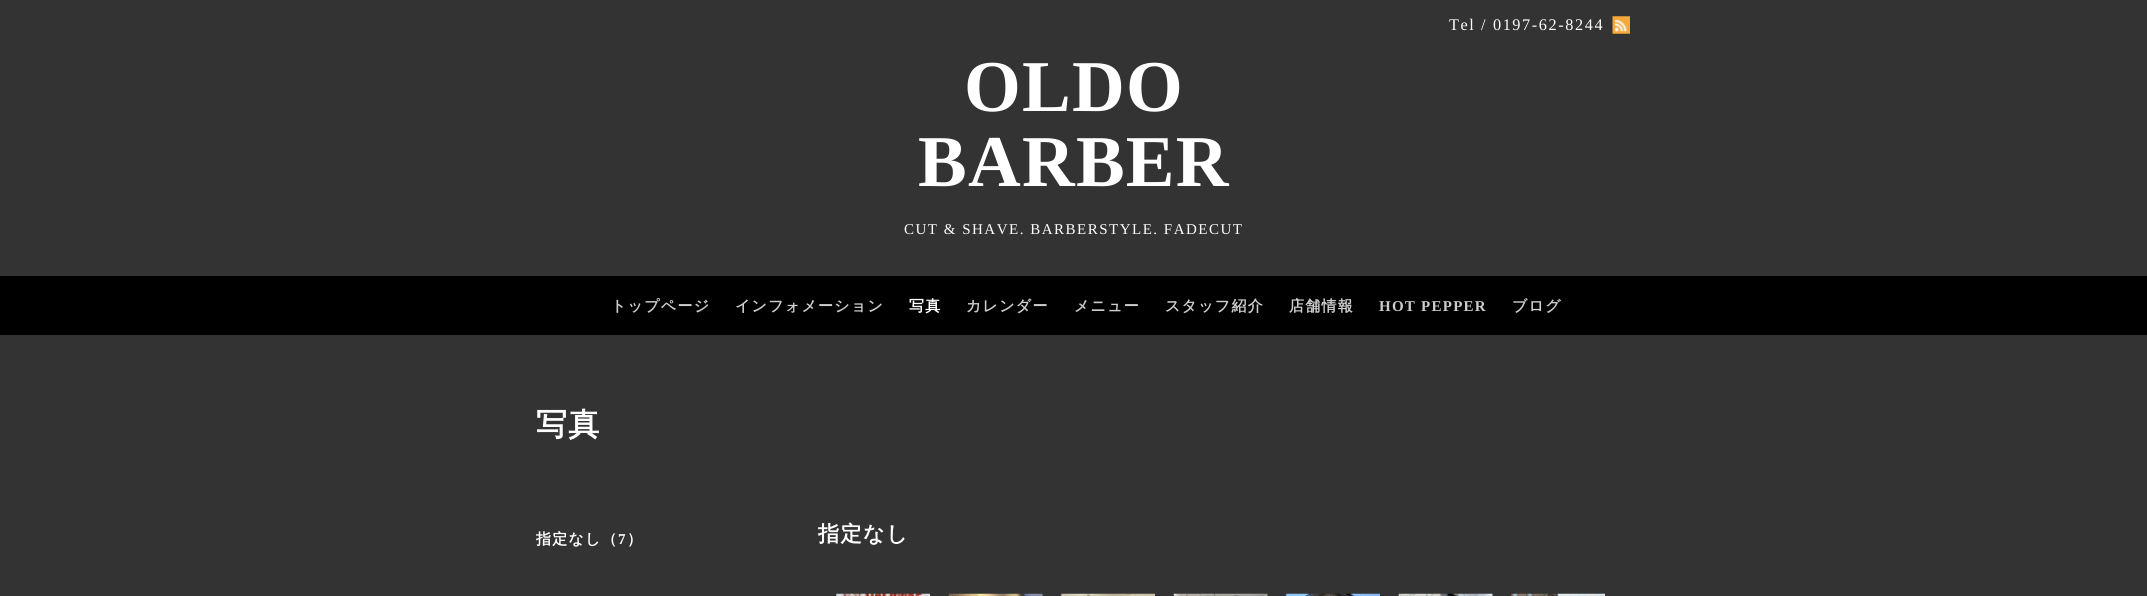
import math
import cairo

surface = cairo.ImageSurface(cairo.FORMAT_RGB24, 2147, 596)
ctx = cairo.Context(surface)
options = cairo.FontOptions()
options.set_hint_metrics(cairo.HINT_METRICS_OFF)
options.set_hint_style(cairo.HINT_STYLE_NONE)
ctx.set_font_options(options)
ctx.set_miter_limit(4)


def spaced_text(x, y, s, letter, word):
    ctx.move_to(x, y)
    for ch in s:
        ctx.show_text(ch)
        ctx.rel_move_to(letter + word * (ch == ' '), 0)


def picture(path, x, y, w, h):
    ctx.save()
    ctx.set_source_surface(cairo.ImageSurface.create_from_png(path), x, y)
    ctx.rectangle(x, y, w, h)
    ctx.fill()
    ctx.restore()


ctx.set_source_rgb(0.2, 0.2, 0.2)
ctx.paint()
ctx.select_font_face("Liberation Serif")
ctx.set_font_size(16.25)
ctx.set_source_rgb(1, 1, 1)
spaced_text(1449, 30, "Tel / 0197-62-8244", 1.6, 0)
picture("img1.png", 1612, 16, 18, 18)
ctx.select_font_face("Liberation Serif", cairo.FONT_SLANT_NORMAL, cairo.FONT_WEIGHT_BOLD)
ctx.set_font_size(73)
spaced_text(964, 111, "OLDO", 1.25, 0)
spaced_text(918, 186, "BARBER", 1.25, 0)
ctx.select_font_face("Liberation Serif")
ctx.set_font_size(15)
spaced_text(904, 234, "CUT & SHAVE. BARBERSTYLE. FADECUT", 1.5, 0)
ctx.set_source_rgb(0, 0, 0)
ctx.rectangle(0, 276, 2147, 59)
ctx.fill()
ctx.select_font_face("WenQuanYi Zen Hei", cairo.FONT_SLANT_NORMAL, cairo.FONT_WEIGHT_BOLD)
ctx.set_source_rgb(0.8, 0.8, 0.8)
spaced_text(611, 311, "トップページ", 1.25, 0)
spaced_text(735, 311, "インフォメーション", 1.25, 0)
ctx.set_source_rgb(1, 1, 1)
spaced_text(909, 311, "写真", 1.25, 0)
ctx.set_source_rgb(0.8, 0.8, 0.8)
spaced_text(966, 311, "カレンダー", 1.25, 0)
spaced_text(1074, 311, "メニュー", 1.25, 0)
spaced_text(1165, 311, "スタッフ紹介", 1.25, 0)
spaced_text(1289, 311, "店舗情報", 1.25, 0)
ctx.select_font_face("Liberation Serif", cairo.FONT_SLANT_NORMAL, cairo.FONT_WEIGHT_BOLD)
spaced_text(1379, 311, "HOT PEPPER", 1.25, 0)
ctx.select_font_face("WenQuanYi Zen Hei", cairo.FONT_SLANT_NORMAL, cairo.FONT_WEIGHT_BOLD)
spaced_text(1512, 311, "ブログ", 1.25, 0)
ctx.set_font_size(31)
ctx.set_source_rgb(1, 1, 1)
spaced_text(536, 435, "写真", 1.25, 0)
ctx.set_font_size(21.25)
spaced_text(818, 541, "指定なし", 1.25, 0)
picture("img2.png", 836, 593, 94, 3)
picture("img3.png", 948, 593, 95, 3)
picture("img4.png", 1061, 593, 94, 3)
picture("img5.png", 1173, 593, 95, 3)
picture("img6.png", 1286, 593, 94, 3)
picture("img7.png", 1398, 593, 95, 3)
picture("img8.png", 1511, 593, 94, 3)
ctx.set_font_size(15)
spaced_text(536, 544, "指定なし（", 1.25, 0)
ctx.select_font_face("Liberation Serif", cairo.FONT_SLANT_NORMAL, cairo.FONT_WEIGHT_BOLD)
spaced_text(618, 544, "7", 1.25, 0)
ctx.select_font_face("WenQuanYi Zen Hei", cairo.FONT_SLANT_NORMAL, cairo.FONT_WEIGHT_BOLD)
spaced_text(627, 544, "）", 1.25, 0)
surface.write_to_png("page.png")
